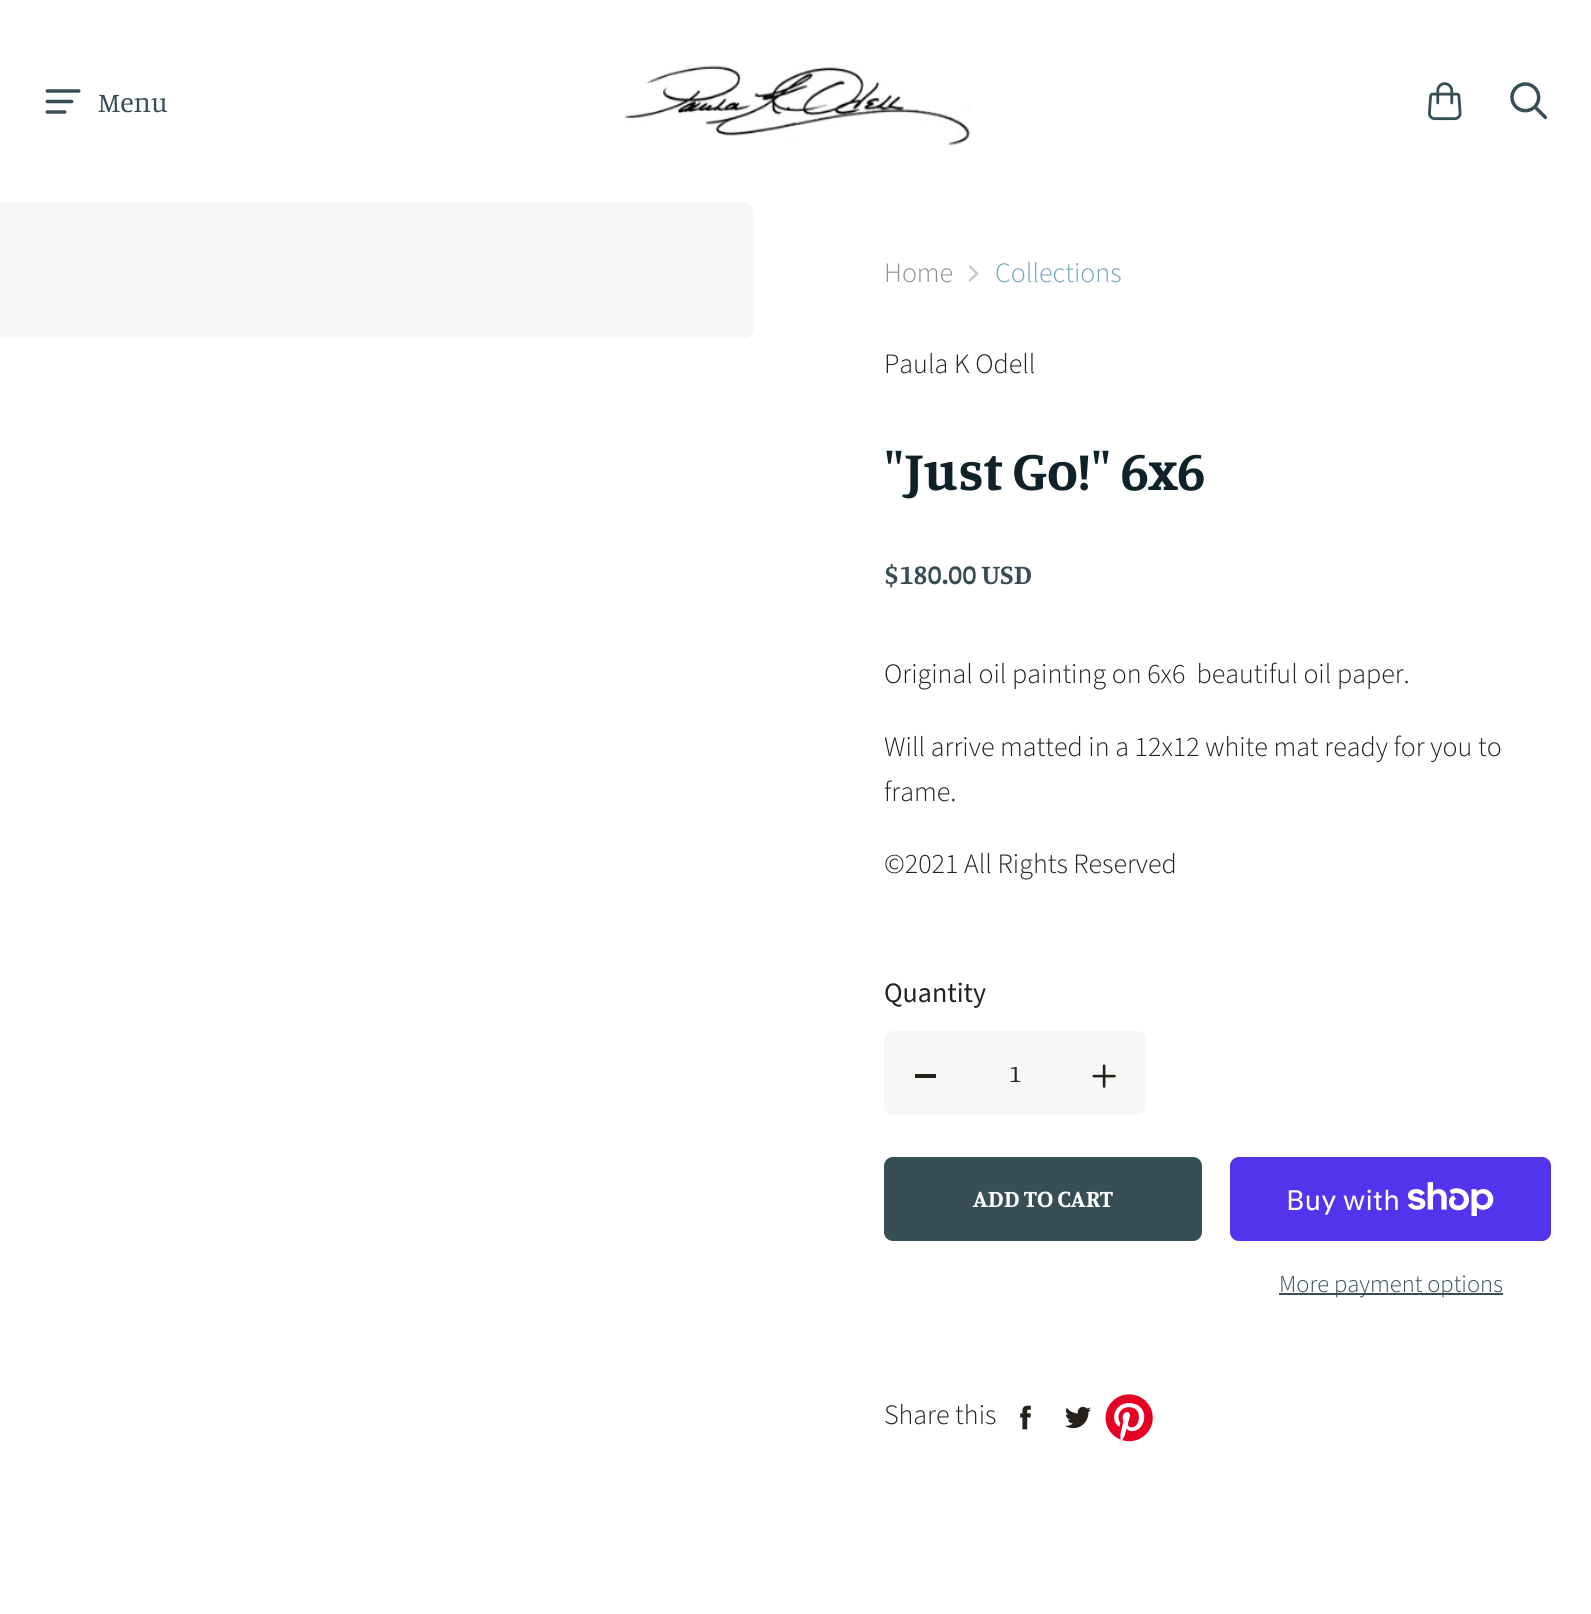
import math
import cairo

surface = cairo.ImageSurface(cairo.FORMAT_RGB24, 1591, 1614)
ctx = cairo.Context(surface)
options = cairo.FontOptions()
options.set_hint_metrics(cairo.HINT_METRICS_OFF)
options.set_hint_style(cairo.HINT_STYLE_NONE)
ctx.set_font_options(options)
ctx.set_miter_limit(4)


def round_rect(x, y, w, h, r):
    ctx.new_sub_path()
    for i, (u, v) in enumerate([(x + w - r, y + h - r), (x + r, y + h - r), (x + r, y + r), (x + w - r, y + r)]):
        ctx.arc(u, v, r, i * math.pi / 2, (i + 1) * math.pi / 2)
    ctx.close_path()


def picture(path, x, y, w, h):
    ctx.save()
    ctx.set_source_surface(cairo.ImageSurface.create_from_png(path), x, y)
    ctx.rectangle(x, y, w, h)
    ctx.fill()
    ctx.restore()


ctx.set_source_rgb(1, 1, 1)
ctx.paint()
picture("img1.png", 45, 89, 36, 25)
ctx.select_font_face("Manuale")
ctx.set_font_size(28)
ctx.set_source_rgb(0.216, 0.306, 0.337)
ctx.move_to(98, 112)
ctx.show_text("Menu")
picture("img2.png", 624, 65, 347, 81)
picture("img3.png", 1428, 82, 34, 39)
picture("img4.png", 1510, 82, 38, 38)
ctx.set_source_rgb(0.965, 0.965, 0.965)
ctx.new_path()
ctx.move_to(0, 203)
ctx.line_to(745, 203)
ctx.curve_to(750, 203, 754, 207, 754, 212)
ctx.line_to(754, 329)
ctx.curve_to(754, 334, 750, 338, 745, 338)
ctx.line_to(0, 338)
ctx.close_path()
ctx.fill()
ctx.select_font_face("Source Sans Pro Light")
ctx.set_source_rgb(0.576, 0.565, 0.557)
ctx.move_to(884, 282)
ctx.show_text("Home")
picture("img5.png", 968, 265, 11, 17)
ctx.set_source_rgb(0.443, 0.643, 0.714)
ctx.move_to(995, 282)
ctx.show_text("Collections")
ctx.set_source_rgb(0.153, 0.129, 0.11)
ctx.move_to(884, 373)
ctx.show_text("Paula K Odell")
ctx.select_font_face("Manuale", cairo.FONT_SLANT_NORMAL, cairo.FONT_WEIGHT_BOLD)
ctx.set_font_size(56)
ctx.set_source_rgb(0.059, 0.133, 0.161)
ctx.move_to(884, 490)
ctx.show_text("\"Just Go!\" 6x6")
ctx.set_font_size(28)
ctx.set_source_rgb(0.216, 0.306, 0.337)
ctx.move_to(884, 584)
ctx.show_text("$180.00 USD")
ctx.select_font_face("Source Sans Pro Light")
ctx.set_source_rgb(0.153, 0.129, 0.11)
ctx.move_to(884, 683)
ctx.show_text("Original oil painting on 6x6  beautiful oil paper.")
ctx.move_to(884, 756)
ctx.show_text("Will arrive matted in a 12x12 white mat ready for you to")
ctx.move_to(884, 801)
ctx.show_text("frame.")
ctx.move_to(884, 873)
ctx.show_text("©2021 All Rights Reserved")
ctx.select_font_face("Source Sans Pro")
ctx.move_to(884, 1002)
ctx.show_text("Quantity")
ctx.set_source_rgb(0.965, 0.965, 0.965)
round_rect(884, 1031, 262, 84, 9)
ctx.fill()
ctx.set_source_rgb(0.153, 0.129, 0.11)
ctx.rectangle(915, 1074, 21, 4)
ctx.fill()
ctx.select_font_face("Manuale")
ctx.set_font_size(24.5)
ctx.move_to(1009, 1082)
ctx.show_text("1")
picture("img6.png", 1092, 1064, 24, 24)
ctx.set_source_rgb(0.216, 0.306, 0.337)
round_rect(884, 1157, 318, 84, 9)
ctx.fill()
ctx.select_font_face("Manuale", cairo.FONT_SLANT_NORMAL, cairo.FONT_WEIGHT_BOLD)
ctx.set_source_rgb(1, 1, 1)
ctx.move_to(973, 1207)
ctx.show_text("ADD TO CART")
ctx.set_source_rgb(0.329, 0.2, 0.922)
round_rect(1230, 1157, 321, 84, 9)
ctx.fill()
ctx.select_font_face("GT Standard")
ctx.set_font_size(28)
ctx.set_source_rgb(1, 1, 1)
ctx.move_to(1286, 1210)
ctx.show_text("Buy with")
picture("img7.png", 1408, 1182, 86, 34)
ctx.set_source_rgb(0.216, 0.306, 0.337)
ctx.rectangle(1279, 1293, 224, 2)
ctx.fill()
ctx.select_font_face("Source Sans Pro Light")
ctx.set_font_size(24.5)
ctx.move_to(1279, 1292)
ctx.show_text("More payment options")
ctx.set_font_size(28)
ctx.set_source_rgb(0.153, 0.129, 0.11)
ctx.move_to(884, 1424)
ctx.show_text("Share this")
picture("img8.png", 1020, 1405, 11, 25)
picture("img9.png", 1065, 1406, 26, 23)
picture("img10.png", 1105, 1394, 48, 48)
surface.write_to_png("page.png")
